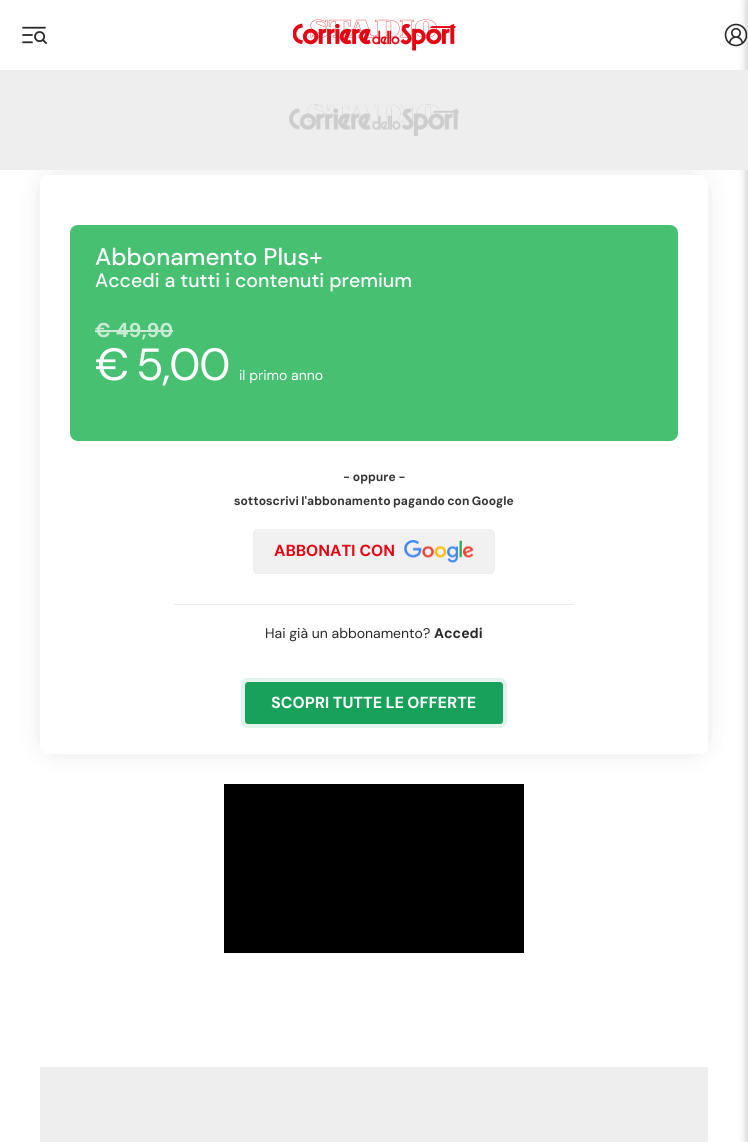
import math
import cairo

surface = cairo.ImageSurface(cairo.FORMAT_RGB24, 748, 1142)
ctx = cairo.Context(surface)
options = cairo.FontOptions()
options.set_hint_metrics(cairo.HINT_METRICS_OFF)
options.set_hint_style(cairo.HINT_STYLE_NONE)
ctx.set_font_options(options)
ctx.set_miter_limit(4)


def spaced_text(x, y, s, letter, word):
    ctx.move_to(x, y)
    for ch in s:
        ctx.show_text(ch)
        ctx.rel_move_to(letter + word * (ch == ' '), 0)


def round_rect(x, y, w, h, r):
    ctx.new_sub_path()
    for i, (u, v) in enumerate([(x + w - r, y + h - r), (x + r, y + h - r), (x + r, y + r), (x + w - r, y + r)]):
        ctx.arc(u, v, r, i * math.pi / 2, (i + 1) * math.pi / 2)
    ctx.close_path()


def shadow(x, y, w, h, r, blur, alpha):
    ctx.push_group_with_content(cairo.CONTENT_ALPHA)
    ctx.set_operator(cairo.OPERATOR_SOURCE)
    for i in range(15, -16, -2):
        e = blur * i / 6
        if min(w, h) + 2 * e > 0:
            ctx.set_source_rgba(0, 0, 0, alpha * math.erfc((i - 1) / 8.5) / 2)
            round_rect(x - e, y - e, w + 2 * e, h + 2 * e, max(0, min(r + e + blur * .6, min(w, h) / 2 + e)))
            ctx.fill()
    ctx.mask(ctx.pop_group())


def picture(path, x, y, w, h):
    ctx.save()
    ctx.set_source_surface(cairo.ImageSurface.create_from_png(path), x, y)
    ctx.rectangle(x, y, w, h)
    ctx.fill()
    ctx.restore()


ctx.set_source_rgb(1, 1, 1)
ctx.paint()
picture("img3.png", 724, 23, 24, 24)
ctx.set_source_rgb(0, 0, 0)
shadow(746, 0, 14, 1142, 0, 4, 0.2)
picture("img1.png", 22, 26, 26, 19)
picture("img2.png", 293, 19, 163, 32)
ctx.save()
ctx.set_fill_rule(cairo.FILL_RULE_EVEN_ODD)
ctx.new_path()
ctx.move_to(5, 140)
ctx.line_to(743, 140)
ctx.line_to(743, 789)
ctx.line_to(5, 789)
ctx.close_path()
ctx.move_to(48, 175)
ctx.line_to(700, 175)
ctx.curve_to(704.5, 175, 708, 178.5, 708, 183)
ctx.line_to(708, 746)
ctx.curve_to(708, 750.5, 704.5, 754, 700, 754)
ctx.line_to(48, 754)
ctx.curve_to(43.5, 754, 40, 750.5, 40, 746)
ctx.line_to(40, 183)
ctx.curve_to(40, 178.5, 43.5, 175, 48, 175)
ctx.close_path()
ctx.clip()
shadow(54, 189, 640, 551, 0, 16, 0.25)
ctx.restore()
ctx.set_source_rgb(0.933, 0.933, 0.933)
ctx.rectangle(0, 70, 748, 100)
ctx.fill()
picture("img4.png", 289, 104, 170, 32)
ctx.set_source_rgb(0.278, 0.753, 0.447)
round_rect(70, 225, 608, 216, 8)
ctx.fill()
ctx.select_font_face("DM Sans Medium")
ctx.set_font_size(24)
ctx.set_source_rgb(1, 1, 1)
ctx.move_to(95, 265)
ctx.show_text("Abbonamento Plus+")
ctx.select_font_face("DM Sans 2 Medium")
ctx.set_font_size(19.5)
ctx.move_to(95, 287)
ctx.show_text("Accedi a tutti i contenuti premium")
ctx.select_font_face("DM Sans", cairo.FONT_SLANT_NORMAL, cairo.FONT_WEIGHT_BOLD)
ctx.set_font_size(20)
ctx.set_source_rgb(0.784, 0.925, 0.835)
ctx.move_to(95, 337)
ctx.show_text("€ 49,90")
ctx.rectangle(95, 330, 78, 2)
ctx.fill()
ctx.select_font_face("DM Sans")
ctx.set_font_size(45)
ctx.set_source_rgb(1, 1, 1)
ctx.move_to(95, 380)
ctx.show_text("€ 5,00")
ctx.select_font_face("DM Sans 2")
ctx.set_font_size(14)
ctx.move_to(239, 380)
ctx.show_text("il primo anno")
ctx.select_font_face("DM Sans", cairo.FONT_SLANT_NORMAL, cairo.FONT_WEIGHT_BOLD)
ctx.set_font_size(12)
ctx.set_source_rgb(0.2, 0.2, 0.2)
ctx.move_to(343, 481)
ctx.show_text("- oppure -")
spaced_text(234, 505, "sottoscrivi l'abbonamento pagando con Google", 0, -0.5)
ctx.set_source_rgb(0.945, 0.945, 0.945)
round_rect(253.5, 529.5, 241, 44, 4.5)
ctx.fill_preserve()
ctx.set_source_rgb(0.933, 0.933, 0.933)
ctx.set_line_width(1)
ctx.stroke()
ctx.set_font_size(16)
ctx.set_source_rgb(0.89, 0.024, 0.075)
ctx.move_to(274, 556)
ctx.show_text("ABBONATI CON")
picture("img5.png", 404, 540, 70, 23)
ctx.set_source_rgb(0.918, 0.918, 0.918)
ctx.rectangle(174, 604, 400, 1)
ctx.fill()
ctx.select_font_face("DM Sans 2")
ctx.set_font_size(14)
ctx.set_source_rgb(0.157, 0.157, 0.157)
ctx.move_to(265, 638)
ctx.show_text("Hai già un abbonamento?")
ctx.select_font_face("DM Sans", cairo.FONT_SLANT_NORMAL, cairo.FONT_WEIGHT_BOLD)
ctx.move_to(434, 638)
ctx.show_text("Accedi")
round_rect(243, 680, 262, 46, 5)
ctx.set_source_rgb(0.89, 0.957, 0.922)
ctx.set_line_width(4)
ctx.stroke()
ctx.set_source_rgb(0.094, 0.631, 0.357)
round_rect(246, 683, 256, 40, 2)
ctx.fill_preserve()
ctx.set_line_width(2)
ctx.stroke()
ctx.set_font_size(16)
ctx.set_source_rgb(1, 1, 1)
spaced_text(271, 708, "SCOPRI TUTTE LE OFFERTE", 0, -0.5)
ctx.set_source_rgb(0, 0, 0)
ctx.rectangle(224, 784, 300, 169)
ctx.fill()
ctx.set_source_rgb(0.933, 0.933, 0.933)
ctx.rectangle(40, 1067, 668, 75)
ctx.fill()
surface.write_to_png("page.png")
